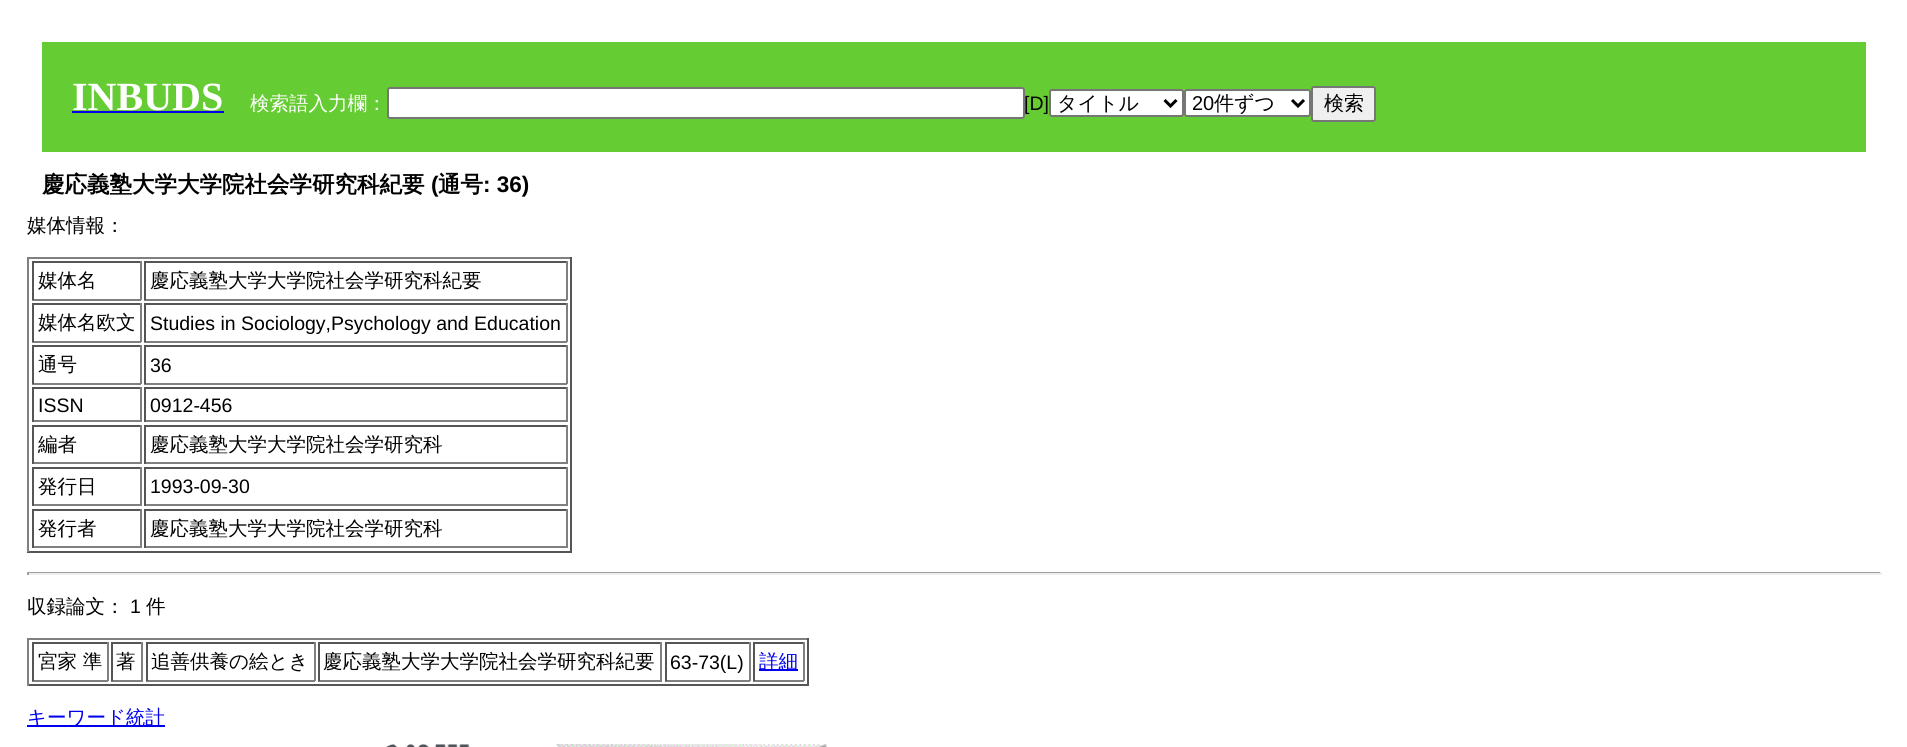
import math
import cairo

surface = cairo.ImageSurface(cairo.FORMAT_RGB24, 1907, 747)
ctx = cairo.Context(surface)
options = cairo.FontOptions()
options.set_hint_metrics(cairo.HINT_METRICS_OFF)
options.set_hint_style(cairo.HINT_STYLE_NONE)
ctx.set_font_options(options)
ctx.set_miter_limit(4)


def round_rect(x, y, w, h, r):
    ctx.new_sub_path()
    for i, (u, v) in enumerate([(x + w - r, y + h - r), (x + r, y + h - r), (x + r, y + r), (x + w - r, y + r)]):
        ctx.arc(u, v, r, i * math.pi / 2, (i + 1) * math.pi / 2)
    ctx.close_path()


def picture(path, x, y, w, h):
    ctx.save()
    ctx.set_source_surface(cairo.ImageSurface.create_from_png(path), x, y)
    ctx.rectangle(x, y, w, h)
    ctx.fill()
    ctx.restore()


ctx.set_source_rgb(1, 1, 1)
ctx.paint()
ctx.set_source_rgb(0.4, 0.8, 0.2)
ctx.rectangle(42, 42, 1824, 110)
ctx.fill()
ctx.select_font_face("Liberation Serif", cairo.FONT_SLANT_NORMAL, cairo.FONT_WEIGHT_BOLD)
ctx.set_font_size(40)
ctx.set_source_rgb(1, 1, 1)
ctx.move_to(72, 110)
ctx.show_text("INBUDS")
ctx.set_source_rgb(0, 0, 0.933)
ctx.rectangle(72, 111, 152, 2)
ctx.fill()
ctx.select_font_face("WenQuanYi Zen Hei Medium")
ctx.set_font_size(19.5)
ctx.set_source_rgb(1, 1, 1)
ctx.move_to(250, 110)
ctx.show_text("検索語入力欄：")
round_rect(388, 88, 636, 30, 2)
ctx.fill_preserve()
ctx.set_source_rgb(0.463, 0.463, 0.463)
ctx.stroke()
ctx.select_font_face("Liberation Sans")
ctx.set_source_rgb(0, 0, 0)
ctx.move_to(1024, 110)
ctx.show_text("[D]")
ctx.set_source_rgb(1, 1, 1)
round_rect(1050, 90, 133, 26, 2)
ctx.fill_preserve()
ctx.set_source_rgb(0.463, 0.463, 0.463)
ctx.stroke()
ctx.new_path()
ctx.move_to(1164.5, 100)
ctx.line_to(1170.5, 106)
ctx.line_to(1176.5, 100)
ctx.set_source_rgb(0, 0, 0)
ctx.set_line_width(3)
ctx.stroke()
ctx.select_font_face("WenQuanYi Zen Hei Medium")
ctx.set_font_size(20)
ctx.move_to(1057, 110)
ctx.show_text("タイトル")
ctx.set_source_rgb(1, 1, 1)
round_rect(1185, 90, 125, 26, 2)
ctx.fill_preserve()
ctx.set_source_rgb(0.463, 0.463, 0.463)
ctx.set_line_width(2)
ctx.stroke()
ctx.new_path()
ctx.move_to(1292, 100)
ctx.line_to(1298, 106)
ctx.line_to(1304, 100)
ctx.set_source_rgb(0, 0, 0)
ctx.set_line_width(3)
ctx.stroke()
ctx.select_font_face("Liberation Sans")
ctx.move_to(1192, 110)
ctx.show_text("20")
ctx.select_font_face("WenQuanYi Zen Hei Medium")
ctx.move_to(1214, 110)
ctx.show_text("件ずつ")
ctx.set_source_rgb(0.937, 0.937, 0.937)
round_rect(1312, 87, 63, 34, 2)
ctx.fill_preserve()
ctx.set_source_rgb(0.463, 0.463, 0.463)
ctx.set_line_width(2)
ctx.stroke()
ctx.set_source_rgb(0, 0, 0)
ctx.move_to(1324, 110)
ctx.show_text("検索")
ctx.select_font_face("WenQuanYi Zen Hei", cairo.FONT_SLANT_NORMAL, cairo.FONT_WEIGHT_BOLD)
ctx.set_font_size(22.5)
ctx.move_to(42, 192)
ctx.show_text("慶応義塾大学大学院社会学研究科紀要")
ctx.select_font_face("Liberation Sans", cairo.FONT_SLANT_NORMAL, cairo.FONT_WEIGHT_BOLD)
ctx.move_to(431, 192)
ctx.show_text("(")
ctx.select_font_face("WenQuanYi Zen Hei", cairo.FONT_SLANT_NORMAL, cairo.FONT_WEIGHT_BOLD)
ctx.move_to(438, 192)
ctx.show_text("通号")
ctx.select_font_face("Liberation Sans", cairo.FONT_SLANT_NORMAL, cairo.FONT_WEIGHT_BOLD)
ctx.move_to(483, 192)
ctx.show_text(": 36)")
ctx.select_font_face("WenQuanYi Zen Hei Medium")
ctx.set_font_size(19.5)
ctx.move_to(27, 232)
ctx.show_text("媒体情報：")
ctx.set_source_rgb(0.502, 0.502, 0.502)
ctx.rectangle(27, 257, 545, 2)
ctx.fill()
ctx.set_source_rgb(0.333, 0.333, 0.333)
ctx.rectangle(570, 257, 2, 295)
ctx.fill()
ctx.rectangle(27, 551, 545, 2)
ctx.fill()
ctx.set_source_rgb(0.502, 0.502, 0.502)
ctx.rectangle(27, 257, 2, 295)
ctx.fill()
ctx.set_source_rgb(0.333, 0.333, 0.333)
ctx.rectangle(32, 261, 109, 2)
ctx.fill()
ctx.set_source_rgb(0.502, 0.502, 0.502)
ctx.rectangle(140, 261, 2, 39)
ctx.fill()
ctx.rectangle(32, 299, 109, 2)
ctx.fill()
ctx.set_source_rgb(0.333, 0.333, 0.333)
ctx.rectangle(32, 261, 2, 39)
ctx.fill()
ctx.set_source_rgb(0, 0, 0)
ctx.move_to(38, 287)
ctx.show_text("媒体名")
ctx.set_source_rgb(0.333, 0.333, 0.333)
ctx.rectangle(144, 261, 423, 2)
ctx.fill()
ctx.set_source_rgb(0.502, 0.502, 0.502)
ctx.rectangle(566, 261, 2, 39)
ctx.fill()
ctx.rectangle(144, 299, 423, 2)
ctx.fill()
ctx.set_source_rgb(0.333, 0.333, 0.333)
ctx.rectangle(144, 261, 2, 39)
ctx.fill()
ctx.set_source_rgb(0, 0, 0)
ctx.move_to(150, 287)
ctx.show_text("慶応義塾大学大学院社会学研究科紀要")
ctx.set_source_rgb(0.333, 0.333, 0.333)
ctx.rectangle(32, 303, 109, 2)
ctx.fill()
ctx.set_source_rgb(0.502, 0.502, 0.502)
ctx.rectangle(140, 303, 2, 39)
ctx.fill()
ctx.rectangle(32, 341, 109, 2)
ctx.fill()
ctx.set_source_rgb(0.333, 0.333, 0.333)
ctx.rectangle(32, 303, 2, 39)
ctx.fill()
ctx.set_source_rgb(0, 0, 0)
ctx.move_to(38, 329)
ctx.show_text("媒体名欧文")
ctx.set_source_rgb(0.333, 0.333, 0.333)
ctx.rectangle(144, 303, 423, 2)
ctx.fill()
ctx.set_source_rgb(0.502, 0.502, 0.502)
ctx.rectangle(566, 303, 2, 39)
ctx.fill()
ctx.rectangle(144, 341, 423, 2)
ctx.fill()
ctx.set_source_rgb(0.333, 0.333, 0.333)
ctx.rectangle(144, 303, 2, 39)
ctx.fill()
ctx.select_font_face("Liberation Sans")
ctx.set_source_rgb(0, 0, 0)
ctx.move_to(150, 330)
ctx.show_text("Studies in Sociology,Psychology and Education")
ctx.set_source_rgb(0.333, 0.333, 0.333)
ctx.rectangle(32, 345, 109, 2)
ctx.fill()
ctx.set_source_rgb(0.502, 0.502, 0.502)
ctx.rectangle(140, 345, 2, 39)
ctx.fill()
ctx.rectangle(32, 383, 109, 2)
ctx.fill()
ctx.set_source_rgb(0.333, 0.333, 0.333)
ctx.rectangle(32, 345, 2, 39)
ctx.fill()
ctx.select_font_face("WenQuanYi Zen Hei Medium")
ctx.set_source_rgb(0, 0, 0)
ctx.move_to(38, 371)
ctx.show_text("通号")
ctx.set_source_rgb(0.333, 0.333, 0.333)
ctx.rectangle(144, 345, 423, 2)
ctx.fill()
ctx.set_source_rgb(0.502, 0.502, 0.502)
ctx.rectangle(566, 345, 2, 39)
ctx.fill()
ctx.rectangle(144, 383, 423, 2)
ctx.fill()
ctx.set_source_rgb(0.333, 0.333, 0.333)
ctx.rectangle(144, 345, 2, 39)
ctx.fill()
ctx.select_font_face("Liberation Sans")
ctx.set_source_rgb(0, 0, 0)
ctx.move_to(150, 372)
ctx.show_text("36")
ctx.set_source_rgb(0.333, 0.333, 0.333)
ctx.rectangle(32, 387, 109, 2)
ctx.fill()
ctx.set_source_rgb(0.502, 0.502, 0.502)
ctx.rectangle(140, 387, 2, 35)
ctx.fill()
ctx.rectangle(32, 420, 109, 2)
ctx.fill()
ctx.set_source_rgb(0.333, 0.333, 0.333)
ctx.rectangle(32, 387, 2, 35)
ctx.fill()
ctx.set_source_rgb(0, 0, 0)
ctx.move_to(38, 412)
ctx.show_text("ISSN")
ctx.set_source_rgb(0.333, 0.333, 0.333)
ctx.rectangle(144, 387, 423, 2)
ctx.fill()
ctx.set_source_rgb(0.502, 0.502, 0.502)
ctx.rectangle(566, 387, 2, 35)
ctx.fill()
ctx.rectangle(144, 420, 423, 2)
ctx.fill()
ctx.set_source_rgb(0.333, 0.333, 0.333)
ctx.rectangle(144, 387, 2, 35)
ctx.fill()
ctx.set_source_rgb(0, 0, 0)
ctx.move_to(150, 412)
ctx.show_text("0912-456")
ctx.set_source_rgb(0.333, 0.333, 0.333)
ctx.rectangle(32, 425, 109, 2)
ctx.fill()
ctx.set_source_rgb(0.502, 0.502, 0.502)
ctx.rectangle(140, 425, 2, 39)
ctx.fill()
ctx.rectangle(32, 462, 109, 2)
ctx.fill()
ctx.set_source_rgb(0.333, 0.333, 0.333)
ctx.rectangle(32, 425, 2, 39)
ctx.fill()
ctx.select_font_face("WenQuanYi Zen Hei Medium")
ctx.set_source_rgb(0, 0, 0)
ctx.move_to(38, 451)
ctx.show_text("編者")
ctx.set_source_rgb(0.333, 0.333, 0.333)
ctx.rectangle(144, 425, 423, 2)
ctx.fill()
ctx.set_source_rgb(0.502, 0.502, 0.502)
ctx.rectangle(566, 425, 2, 39)
ctx.fill()
ctx.rectangle(144, 462, 423, 2)
ctx.fill()
ctx.set_source_rgb(0.333, 0.333, 0.333)
ctx.rectangle(144, 425, 2, 39)
ctx.fill()
ctx.set_source_rgb(0, 0, 0)
ctx.move_to(150, 451)
ctx.show_text("慶応義塾大学大学院社会学研究科")
ctx.set_source_rgb(0.333, 0.333, 0.333)
ctx.rectangle(32, 467, 109, 2)
ctx.fill()
ctx.set_source_rgb(0.502, 0.502, 0.502)
ctx.rectangle(140, 467, 2, 39)
ctx.fill()
ctx.rectangle(32, 504, 109, 2)
ctx.fill()
ctx.set_source_rgb(0.333, 0.333, 0.333)
ctx.rectangle(32, 467, 2, 39)
ctx.fill()
ctx.set_source_rgb(0, 0, 0)
ctx.move_to(38, 493)
ctx.show_text("発行日")
ctx.set_source_rgb(0.333, 0.333, 0.333)
ctx.rectangle(144, 467, 423, 2)
ctx.fill()
ctx.set_source_rgb(0.502, 0.502, 0.502)
ctx.rectangle(566, 467, 2, 39)
ctx.fill()
ctx.rectangle(144, 504, 423, 2)
ctx.fill()
ctx.set_source_rgb(0.333, 0.333, 0.333)
ctx.rectangle(144, 467, 2, 39)
ctx.fill()
ctx.select_font_face("Liberation Sans")
ctx.set_source_rgb(0, 0, 0)
ctx.move_to(150, 493)
ctx.show_text("1993-09-30")
ctx.set_source_rgb(0.333, 0.333, 0.333)
ctx.rectangle(32, 509, 109, 2)
ctx.fill()
ctx.set_source_rgb(0.502, 0.502, 0.502)
ctx.rectangle(140, 509, 2, 39)
ctx.fill()
ctx.rectangle(32, 546, 109, 2)
ctx.fill()
ctx.set_source_rgb(0.333, 0.333, 0.333)
ctx.rectangle(32, 509, 2, 39)
ctx.fill()
ctx.select_font_face("WenQuanYi Zen Hei Medium")
ctx.set_source_rgb(0, 0, 0)
ctx.move_to(38, 535)
ctx.show_text("発行者")
ctx.set_source_rgb(0.333, 0.333, 0.333)
ctx.rectangle(144, 509, 423, 2)
ctx.fill()
ctx.set_source_rgb(0.502, 0.502, 0.502)
ctx.rectangle(566, 509, 2, 39)
ctx.fill()
ctx.rectangle(144, 546, 423, 2)
ctx.fill()
ctx.set_source_rgb(0.333, 0.333, 0.333)
ctx.rectangle(144, 509, 2, 39)
ctx.fill()
ctx.set_source_rgb(0, 0, 0)
ctx.move_to(150, 535)
ctx.show_text("慶応義塾大学大学院社会学研究科")
ctx.set_source_rgb(0.624, 0.624, 0.624)
ctx.rectangle(27, 572, 1854, 1)
ctx.fill()
ctx.set_source_rgb(0.933, 0.933, 0.933)
ctx.rectangle(1880, 572, 2, 3)
ctx.fill()
ctx.rectangle(27, 573, 1854, 2)
ctx.fill()
ctx.set_source_rgb(0.624, 0.624, 0.624)
ctx.rectangle(27, 572, 2, 3)
ctx.fill()
ctx.set_source_rgb(0, 0, 0)
ctx.move_to(27, 613)
ctx.show_text("収録論文：")
ctx.select_font_face("Liberation Sans")
ctx.move_to(130, 613)
ctx.show_text("1")
ctx.select_font_face("WenQuanYi Zen Hei Medium")
ctx.move_to(146, 613)
ctx.show_text("件")
ctx.set_source_rgb(0.502, 0.502, 0.502)
ctx.rectangle(27, 638, 782, 2)
ctx.fill()
ctx.set_source_rgb(0.333, 0.333, 0.333)
ctx.rectangle(807, 638, 2, 48)
ctx.fill()
ctx.rectangle(27, 684, 782, 2)
ctx.fill()
ctx.set_source_rgb(0.502, 0.502, 0.502)
ctx.rectangle(27, 638, 2, 48)
ctx.fill()
ctx.set_source_rgb(0.333, 0.333, 0.333)
ctx.rectangle(32, 642, 76, 2)
ctx.fill()
ctx.set_source_rgb(0.502, 0.502, 0.502)
ctx.rectangle(107, 642, 2, 39)
ctx.fill()
ctx.rectangle(32, 680, 76, 2)
ctx.fill()
ctx.set_source_rgb(0.333, 0.333, 0.333)
ctx.rectangle(32, 642, 2, 39)
ctx.fill()
ctx.set_source_rgb(0, 0, 0)
ctx.move_to(38, 668)
ctx.show_text("宮家 準")
ctx.set_source_rgb(0.333, 0.333, 0.333)
ctx.rectangle(111, 642, 32, 2)
ctx.fill()
ctx.set_source_rgb(0.502, 0.502, 0.502)
ctx.rectangle(141, 642, 2, 39)
ctx.fill()
ctx.rectangle(111, 680, 32, 2)
ctx.fill()
ctx.set_source_rgb(0.333, 0.333, 0.333)
ctx.rectangle(111, 642, 2, 39)
ctx.fill()
ctx.set_source_rgb(0, 0, 0)
ctx.move_to(116, 668)
ctx.show_text("著")
ctx.set_source_rgb(0.333, 0.333, 0.333)
ctx.rectangle(146, 642, 169, 2)
ctx.fill()
ctx.set_source_rgb(0.502, 0.502, 0.502)
ctx.rectangle(314, 642, 2, 39)
ctx.fill()
ctx.rectangle(146, 680, 169, 2)
ctx.fill()
ctx.set_source_rgb(0.333, 0.333, 0.333)
ctx.rectangle(146, 642, 2, 39)
ctx.fill()
ctx.set_source_rgb(0, 0, 0)
ctx.move_to(151, 668)
ctx.show_text("追善供養の絵とき")
ctx.set_source_rgb(0.333, 0.333, 0.333)
ctx.rectangle(318, 642, 344, 2)
ctx.fill()
ctx.set_source_rgb(0.502, 0.502, 0.502)
ctx.rectangle(660, 642, 2, 39)
ctx.fill()
ctx.rectangle(318, 680, 344, 2)
ctx.fill()
ctx.set_source_rgb(0.333, 0.333, 0.333)
ctx.rectangle(318, 642, 2, 39)
ctx.fill()
ctx.set_source_rgb(0, 0, 0)
ctx.move_to(323, 668)
ctx.show_text("慶応義塾大学大学院社会学研究科紀要")
ctx.set_source_rgb(0.333, 0.333, 0.333)
ctx.rectangle(665, 642, 85, 2)
ctx.fill()
ctx.set_source_rgb(0.502, 0.502, 0.502)
ctx.rectangle(749, 642, 2, 39)
ctx.fill()
ctx.rectangle(665, 680, 85, 2)
ctx.fill()
ctx.set_source_rgb(0.333, 0.333, 0.333)
ctx.rectangle(665, 642, 2, 39)
ctx.fill()
ctx.select_font_face("Liberation Sans")
ctx.set_source_rgb(0, 0, 0)
ctx.move_to(670, 669)
ctx.show_text("63-73(L)")
ctx.set_source_rgb(0.333, 0.333, 0.333)
ctx.rectangle(753, 642, 51, 2)
ctx.fill()
ctx.set_source_rgb(0.502, 0.502, 0.502)
ctx.rectangle(803, 642, 2, 39)
ctx.fill()
ctx.rectangle(753, 680, 51, 2)
ctx.fill()
ctx.set_source_rgb(0.333, 0.333, 0.333)
ctx.rectangle(753, 642, 2, 39)
ctx.fill()
ctx.set_source_rgb(0, 0, 0.933)
ctx.rectangle(759, 669, 39, 2)
ctx.fill()
ctx.select_font_face("WenQuanYi Zen Hei Medium")
ctx.move_to(759, 668)
ctx.show_text("詳細")
ctx.rectangle(27, 725, 138, 2)
ctx.fill()
ctx.move_to(27, 724)
ctx.show_text("キーワード統計")
picture("img1.png", 385, 744, 85, 3)
picture("img2.png", 556, 744, 271, 3)
surface.write_to_png("page.png")
